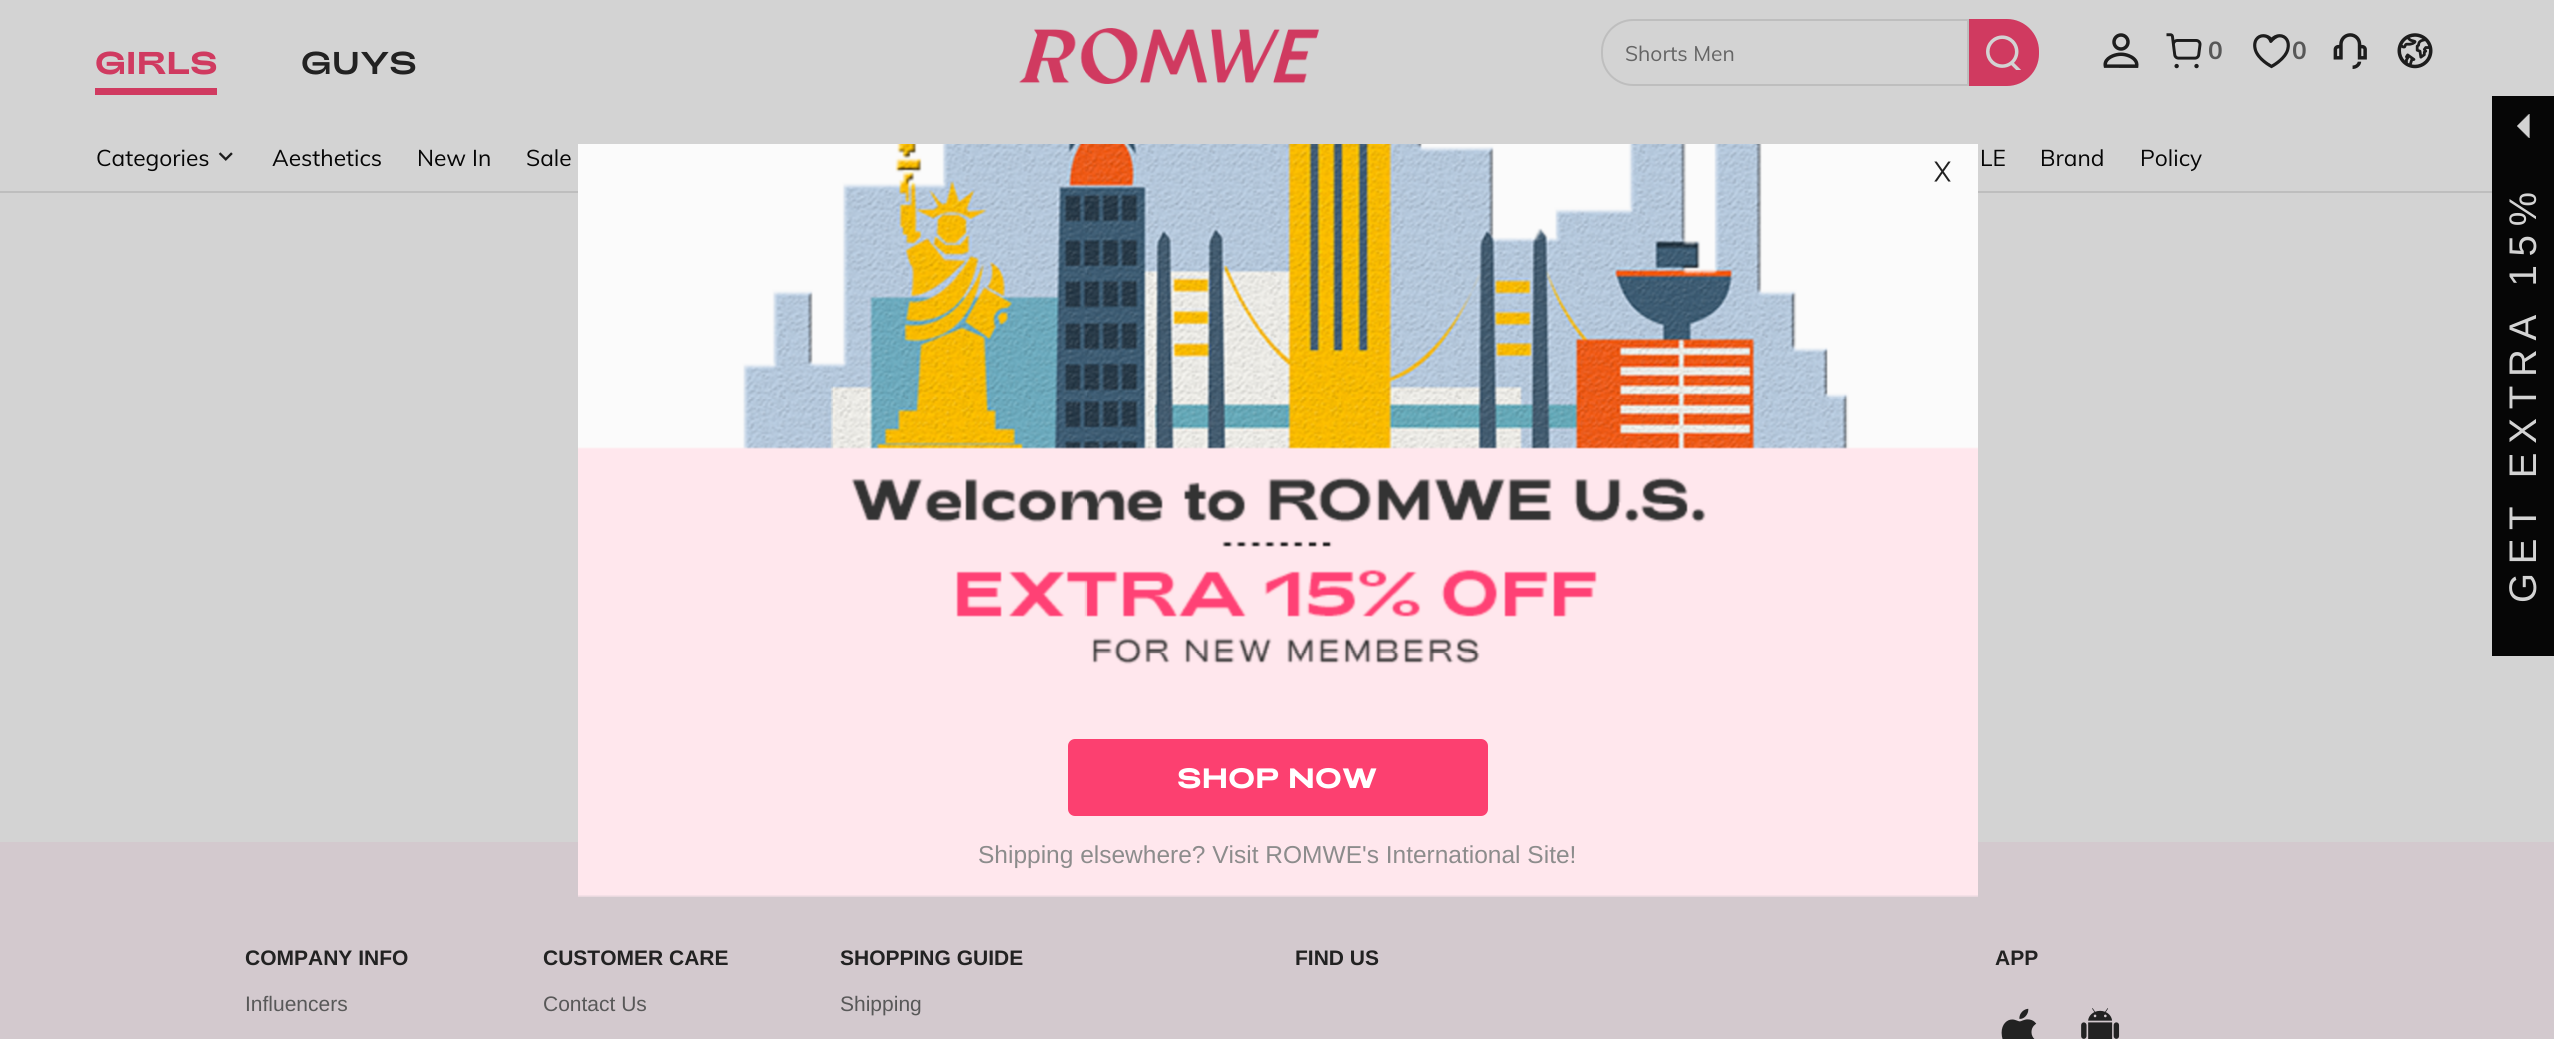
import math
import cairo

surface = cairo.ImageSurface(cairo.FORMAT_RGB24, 2554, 1039)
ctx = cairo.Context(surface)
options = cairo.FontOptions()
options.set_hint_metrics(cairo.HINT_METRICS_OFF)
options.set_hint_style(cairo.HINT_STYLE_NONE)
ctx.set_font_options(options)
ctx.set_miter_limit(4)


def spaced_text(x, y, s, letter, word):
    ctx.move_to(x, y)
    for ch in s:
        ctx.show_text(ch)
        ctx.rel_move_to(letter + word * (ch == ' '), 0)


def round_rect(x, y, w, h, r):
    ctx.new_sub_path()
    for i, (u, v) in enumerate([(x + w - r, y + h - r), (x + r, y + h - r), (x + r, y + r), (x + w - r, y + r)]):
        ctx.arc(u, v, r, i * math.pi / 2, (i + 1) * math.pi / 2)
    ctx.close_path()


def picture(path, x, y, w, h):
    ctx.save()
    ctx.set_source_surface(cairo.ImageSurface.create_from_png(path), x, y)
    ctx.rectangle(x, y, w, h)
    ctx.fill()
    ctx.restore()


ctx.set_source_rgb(0.827, 0.827, 0.827)
ctx.paint()
ctx.select_font_face("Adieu", cairo.FONT_SLANT_NORMAL, cairo.FONT_WEIGHT_BOLD)
ctx.set_font_size(31.5)
ctx.set_source_rgb(0.816, 0.227, 0.376)
ctx.move_to(95, 74)
ctx.show_text("GIRLS")
ctx.rectangle(95, 88, 122, 7)
ctx.fill()
ctx.select_font_face("Adieu")
ctx.set_source_rgb(0.133, 0.133, 0.133)
ctx.move_to(301, 74)
ctx.show_text("GUYS")
picture("img1.png", 1019, 28, 301, 56)
ctx.new_path()
ctx.move_to(1633, 20)
ctx.line_to(1968, 20)
ctx.line_to(1968, 85)
ctx.line_to(1633, 85)
ctx.curve_to(1616, 85, 1602, 71, 1602, 54)
ctx.line_to(1602, 51)
ctx.curve_to(1602, 34, 1616, 20, 1633, 20)
ctx.close_path()
ctx.set_source_rgb(0.745, 0.745, 0.745)
ctx.stroke()
ctx.select_font_face("Muli")
ctx.set_font_size(21)
ctx.set_source_rgb(0.396, 0.396, 0.396)
ctx.move_to(1625, 61)
ctx.show_text("Shorts Men")
ctx.set_source_rgb(0.816, 0.227, 0.376)
ctx.new_path()
ctx.move_to(1969, 19)
ctx.line_to(2007, 19)
ctx.curve_to(2024.5, 19, 2039, 33.5, 2039, 51)
ctx.line_to(2039, 54)
ctx.curve_to(2039, 71.5, 2024.5, 86, 2007, 86)
ctx.line_to(1969, 86)
ctx.close_path()
ctx.fill()
picture("img2.png", 1986, 35, 35, 35)
picture("img3.png", 2103, 33, 36, 35)
picture("img4.png", 2166, 33, 36, 36)
ctx.select_font_face("Muli", cairo.FONT_SLANT_NORMAL, cairo.FONT_WEIGHT_BOLD)
ctx.set_font_size(24.5)
ctx.set_source_rgb(0.345, 0.345, 0.345)
ctx.move_to(2208, 59)
ctx.show_text("0")
picture("img5.png", 2253, 34, 37, 35)
ctx.move_to(2292, 59)
ctx.show_text("0")
picture("img6.png", 2333, 33, 34, 36)
picture("img7.png", 2397, 33, 36, 36)
ctx.set_source_rgb(0.745, 0.745, 0.745)
ctx.rectangle(0, 191, 2492, 2)
ctx.fill()
ctx.select_font_face("Muli")
ctx.set_font_size(22.75)
ctx.set_source_rgb(0.027, 0.027, 0.027)
ctx.move_to(96, 166)
ctx.show_text("Categories")
picture("img8.png", 218, 152, 15, 9)
ctx.move_to(272, 166)
ctx.show_text("Aesthetics")
ctx.move_to(417, 166)
ctx.show_text("New In")
ctx.move_to(526, 166)
ctx.show_text("Sale")
ctx.move_to(1980, 166)
ctx.show_text("LE")
ctx.move_to(2040, 166)
ctx.show_text("Brand")
ctx.move_to(2140, 166)
ctx.show_text("Policy")
ctx.set_source_rgb(0.827, 0.788, 0.808)
ctx.rectangle(0, 842, 2554, 197)
ctx.fill()
ctx.select_font_face("Liberation Sans", cairo.FONT_SLANT_NORMAL, cairo.FONT_WEIGHT_BOLD)
ctx.set_font_size(21)
ctx.set_source_rgb(0.133, 0.133, 0.133)
ctx.move_to(245, 965)
ctx.show_text("COMPANY INFO")
ctx.select_font_face("Liberation Sans")
ctx.set_source_rgb(0.345, 0.345, 0.345)
ctx.move_to(245, 1011)
ctx.show_text("Influencers")
ctx.select_font_face("Liberation Sans", cairo.FONT_SLANT_NORMAL, cairo.FONT_WEIGHT_BOLD)
ctx.set_source_rgb(0.133, 0.133, 0.133)
ctx.move_to(543, 965)
ctx.show_text("CUSTOMER CARE")
ctx.select_font_face("Liberation Sans")
ctx.set_source_rgb(0.345, 0.345, 0.345)
ctx.move_to(543, 1011)
ctx.show_text("Contact Us")
ctx.select_font_face("Liberation Sans", cairo.FONT_SLANT_NORMAL, cairo.FONT_WEIGHT_BOLD)
ctx.set_source_rgb(0.133, 0.133, 0.133)
ctx.move_to(840, 965)
ctx.show_text("SHOPPING GUIDE")
ctx.select_font_face("Liberation Sans")
ctx.set_source_rgb(0.345, 0.345, 0.345)
ctx.move_to(840, 1011)
ctx.show_text("Shipping")
ctx.select_font_face("Liberation Sans", cairo.FONT_SLANT_NORMAL, cairo.FONT_WEIGHT_BOLD)
ctx.set_source_rgb(0.133, 0.133, 0.133)
ctx.move_to(1295, 965)
ctx.show_text("FIND US")
ctx.move_to(1995, 965)
ctx.show_text("APP")
picture("img9.png", 2001, 1008, 36, 31)
picture("img10.png", 2081, 1008, 39, 31)
ctx.set_source_rgb(0.027, 0.027, 0.027)
ctx.rectangle(2492, 96, 62, 560)
ctx.fill()
picture("img11.png", 2517, 114, 13, 24)
ctx.select_font_face("Liberation Sans")
ctx.set_font_size(38.5)
ctx.set_source_rgb(0.827, 0.827, 0.827)
ctx.save()
ctx.translate(2536, 603)
ctx.rotate(-90 * math.pi / 180)
spaced_text(0, 0, "GET EXTRA 15%", 8.75, 0)
ctx.restore()
picture("img12.png", 578, 144, 1400, 753)
picture("img13.png", 1934, 161, 17, 21)
ctx.set_source_rgb(0.988, 0.251, 0.439)
round_rect(1069, 740, 418, 75, 6)
ctx.fill_preserve()
ctx.stroke()
ctx.select_font_face("Adieu", cairo.FONT_SLANT_NORMAL, cairo.FONT_WEIGHT_BOLD)
ctx.set_font_size(28)
ctx.set_source_rgb(1, 1, 1)
ctx.move_to(1177, 788)
ctx.show_text("SHOP NOW")
ctx.select_font_face("Liberation Sans")
ctx.set_font_size(24.5)
ctx.set_source_rgb(0.549, 0.549, 0.549)
ctx.move_to(978, 863)
ctx.show_text("Shipping elsewhere? Visit ROMWE's International Site!")
surface.write_to_png("page.png")
